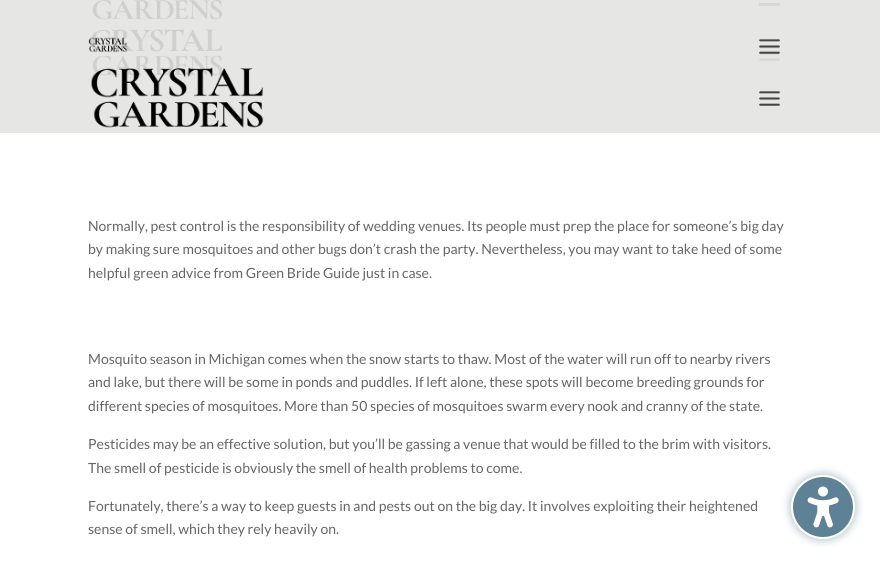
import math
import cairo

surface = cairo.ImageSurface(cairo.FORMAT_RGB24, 880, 564)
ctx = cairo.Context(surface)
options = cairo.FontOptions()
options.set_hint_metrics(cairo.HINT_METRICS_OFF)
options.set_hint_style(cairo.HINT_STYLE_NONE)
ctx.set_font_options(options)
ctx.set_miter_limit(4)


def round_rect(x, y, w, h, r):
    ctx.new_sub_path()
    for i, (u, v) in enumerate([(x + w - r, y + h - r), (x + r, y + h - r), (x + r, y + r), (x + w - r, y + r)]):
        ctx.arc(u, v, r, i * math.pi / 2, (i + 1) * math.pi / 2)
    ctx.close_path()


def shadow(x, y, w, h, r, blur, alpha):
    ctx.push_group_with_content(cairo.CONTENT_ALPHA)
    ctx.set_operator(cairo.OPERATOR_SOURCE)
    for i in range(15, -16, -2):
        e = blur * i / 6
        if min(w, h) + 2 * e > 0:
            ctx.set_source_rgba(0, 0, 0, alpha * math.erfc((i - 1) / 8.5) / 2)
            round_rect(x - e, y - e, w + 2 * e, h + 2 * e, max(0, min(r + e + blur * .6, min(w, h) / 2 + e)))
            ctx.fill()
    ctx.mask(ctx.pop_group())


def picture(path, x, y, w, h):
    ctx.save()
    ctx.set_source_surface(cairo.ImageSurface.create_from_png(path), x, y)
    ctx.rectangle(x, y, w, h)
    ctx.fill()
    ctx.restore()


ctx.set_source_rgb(1, 1, 1)
ctx.paint()
ctx.set_source_rgb(0.902, 0.902, 0.894)
ctx.rectangle(0, 0, 880, 133)
ctx.fill()
picture("img1.png", 92, 0, 131, 20)
ctx.set_source_rgb(0.839, 0.839, 0.827)
ctx.rectangle(759, 3, 21, 3)
ctx.fill()
picture("img2.png", 90, 28, 133, 48)
picture("img3.png", 759, 46, 21, 15)
picture("img4.png", 88, 37, 40, 16)
picture("img5.png", 759, 39, 21, 15)
picture("img6.png", 91, 67, 173, 61)
picture("img7.png", 759, 91, 21, 15)
ctx.select_font_face("Lato")
ctx.set_font_size(14)
ctx.set_source_rgb(0.4, 0.4, 0.4)
ctx.move_to(88, 231)
ctx.show_text("Normally, pest control is the responsibility of wedding venues. Its people must prep the place for someone’s big day")
ctx.move_to(88, 254)
ctx.show_text("by making sure mosquitoes and other bugs don’t crash the party. Nevertheless, you may want to take heed of some")
ctx.move_to(88, 278)
ctx.show_text("helpful green advice from Green Bride Guide just in case.")
ctx.move_to(88, 364)
ctx.show_text("Mosquito season in Michigan comes when the snow starts to thaw. Most of the water will run off to nearby rivers")
ctx.move_to(88, 387)
ctx.show_text("and lake, but there will be some in ponds and puddles. If left alone, these spots will become breeding grounds for")
ctx.move_to(88, 411)
ctx.show_text("different species of mosquitoes. More than 50 species of mosquitoes swarm every nook and cranny of the state.")
ctx.move_to(88, 449)
ctx.show_text("Pesticides may be an effective solution, but you’ll be gassing a venue that would be filled to the brim with visitors.")
ctx.move_to(88, 473)
ctx.show_text("The smell of pesticide is obviously the smell of health problems to come.")
ctx.move_to(88, 511)
ctx.show_text("Fortunately, there’s a way to keep guests in and pests out on the big day. It involves exploiting their heightened")
ctx.move_to(88, 534)
ctx.show_text("sense of smell, which they rely heavily on.")
ctx.set_source_rgb(0.369, 0.506, 0.584)
shadow(789, 473, 68, 68, 34, 4, 0.4)
ctx.set_source_rgb(0.369, 0.506, 0.584)
ctx.arc(823, 507, 31, 0, 2 * math.pi)
ctx.fill_preserve()
ctx.set_source_rgb(1, 1, 1)
ctx.stroke()
picture("img8.png", 807, 486, 32, 42)
surface.write_to_png("page.png")
